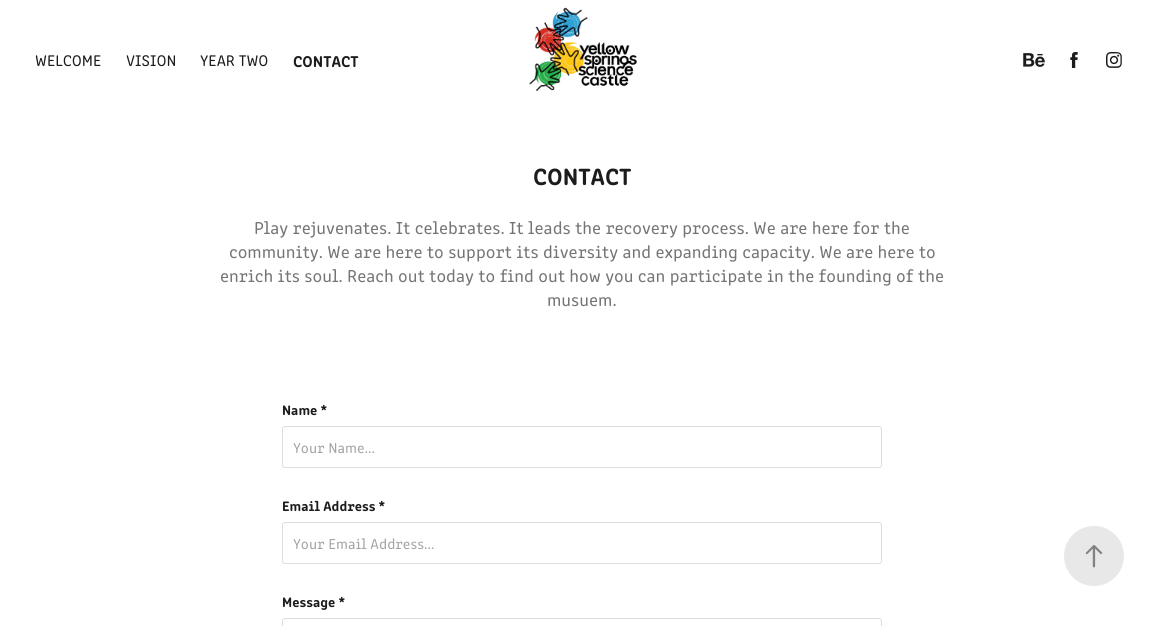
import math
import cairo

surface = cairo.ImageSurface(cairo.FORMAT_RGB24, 1164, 626)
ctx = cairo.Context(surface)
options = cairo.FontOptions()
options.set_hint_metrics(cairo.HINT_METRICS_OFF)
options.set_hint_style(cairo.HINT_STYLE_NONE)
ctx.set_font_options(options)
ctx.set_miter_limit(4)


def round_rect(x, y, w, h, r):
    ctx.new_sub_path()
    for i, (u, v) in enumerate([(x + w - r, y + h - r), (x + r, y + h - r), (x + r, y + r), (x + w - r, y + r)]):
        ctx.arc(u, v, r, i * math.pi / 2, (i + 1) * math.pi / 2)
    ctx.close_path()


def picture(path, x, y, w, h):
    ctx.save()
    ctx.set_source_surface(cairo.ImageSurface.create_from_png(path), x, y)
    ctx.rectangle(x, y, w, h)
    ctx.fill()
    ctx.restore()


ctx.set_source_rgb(1, 1, 1)
ctx.paint()
ctx.select_font_face("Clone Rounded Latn")
ctx.set_font_size(16)
ctx.set_source_rgb(0.11, 0.11, 0.11)
ctx.move_to(35, 66)
ctx.show_text("WELCOME")
ctx.move_to(126, 66)
ctx.show_text("VISION")
ctx.move_to(200, 66)
ctx.show_text("YEAR TWO")
ctx.select_font_face("Clone Rounded Latn", cairo.FONT_SLANT_NORMAL, cairo.FONT_WEIGHT_BOLD)
ctx.move_to(293, 67)
ctx.show_text("CONTACT")
picture("img1.png", 529, 7, 108, 84)
picture("img2.png", 1023, 53, 22, 14)
picture("img3.png", 1070, 52, 8, 16)
picture("img4.png", 1106, 52, 16, 16)
ctx.set_font_size(24)
ctx.move_to(533, 185)
ctx.show_text("CONTACT")
ctx.select_font_face("Clone Rounded Latn")
ctx.set_font_size(18)
ctx.set_source_rgb(0.459, 0.459, 0.459)
ctx.move_to(254, 234)
ctx.show_text("Play rejuvenates. It celebrates. It leads the recovery process. We are here for the")
ctx.move_to(229, 258)
ctx.show_text("community. We are here to support its diversity and expanding capacity. We are here to")
ctx.move_to(220, 282)
ctx.show_text("enrich its soul. Reach out today to find out how you can participate in the founding of the")
ctx.move_to(547, 306)
ctx.show_text("musuem.")
ctx.select_font_face("Clone Rounded Latn", cairo.FONT_SLANT_NORMAL, cairo.FONT_WEIGHT_BOLD)
ctx.set_font_size(14)
ctx.set_source_rgb(0.11, 0.11, 0.11)
ctx.move_to(282, 415)
ctx.show_text("Name *")
round_rect(282.5, 426.5, 599, 41, 2.5)
ctx.set_source_rgb(0.867, 0.867, 0.867)
ctx.set_line_width(1)
ctx.stroke()
ctx.select_font_face("Clone Rounded Latn")
ctx.set_font_size(15)
ctx.set_source_rgb(0.643, 0.643, 0.643)
ctx.move_to(293, 453)
ctx.show_text("Your Name...")
ctx.select_font_face("Clone Rounded Latn", cairo.FONT_SLANT_NORMAL, cairo.FONT_WEIGHT_BOLD)
ctx.set_font_size(14)
ctx.set_source_rgb(0.11, 0.11, 0.11)
ctx.move_to(282, 511)
ctx.show_text("Email Address *")
round_rect(282.5, 522.5, 599, 41, 2.5)
ctx.set_source_rgb(0.867, 0.867, 0.867)
ctx.stroke()
ctx.select_font_face("Clone Rounded Latn")
ctx.set_font_size(15)
ctx.set_source_rgb(0.643, 0.643, 0.643)
ctx.move_to(293, 549)
ctx.show_text("Your Email Address...")
ctx.select_font_face("Clone Rounded Latn", cairo.FONT_SLANT_NORMAL, cairo.FONT_WEIGHT_BOLD)
ctx.set_font_size(14)
ctx.set_source_rgb(0.11, 0.11, 0.11)
ctx.move_to(282, 607)
ctx.show_text("Message *")
round_rect(282.5, 618.5, 599, 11, 2.5)
ctx.set_source_rgb(0.867, 0.867, 0.867)
ctx.stroke()
ctx.set_source_rgb(0.91, 0.91, 0.91)
ctx.arc(1094, 556, 30, 0, 2 * math.pi)
ctx.fill()
picture("img5.png", 1085, 545, 18, 23)
surface.write_to_png("page.png")
